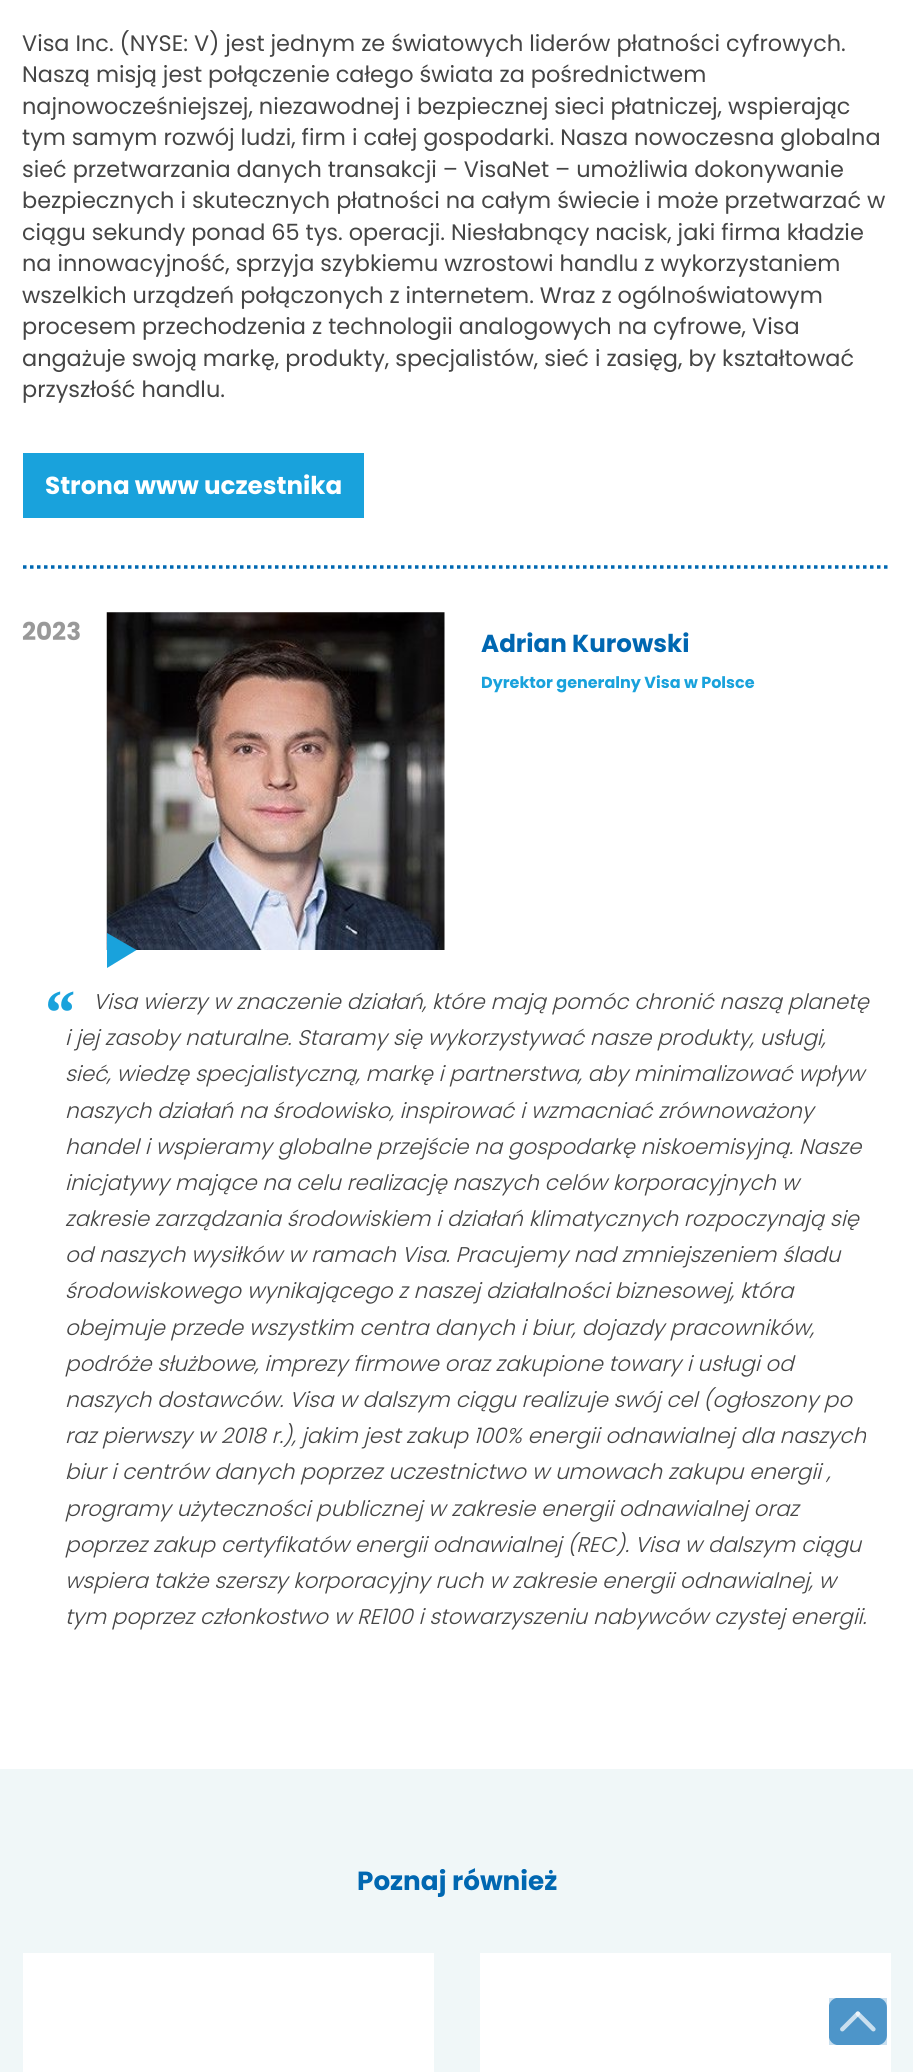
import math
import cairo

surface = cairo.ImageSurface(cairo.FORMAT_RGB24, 913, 2072)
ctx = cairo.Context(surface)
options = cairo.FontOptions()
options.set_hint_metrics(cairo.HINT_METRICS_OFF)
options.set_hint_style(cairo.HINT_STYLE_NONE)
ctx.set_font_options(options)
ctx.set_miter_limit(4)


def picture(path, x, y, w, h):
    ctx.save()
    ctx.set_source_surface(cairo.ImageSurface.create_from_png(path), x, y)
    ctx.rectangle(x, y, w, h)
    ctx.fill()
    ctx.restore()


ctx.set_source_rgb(1, 1, 1)
ctx.paint()
ctx.select_font_face("Poppins")
ctx.set_font_size(22.4)
ctx.set_source_rgb(0.271, 0.271, 0.271)
ctx.move_to(22, 51)
ctx.show_text("Visa Inc. (NYSE: V) jest jednym ze światowych liderów płatności cyfrowych.")
ctx.move_to(22, 82)
ctx.show_text("Naszą misją jest połączenie całego świata za pośrednictwem")
ctx.move_to(22, 114)
ctx.show_text("najnowocześniejszej, niezawodnej i bezpiecznej sieci płatniczej, wspierając")
ctx.move_to(22, 145)
ctx.show_text("tym samym rozwój ludzi, firm i całej gospodarki. Nasza nowoczesna globalna")
ctx.move_to(22, 177)
ctx.show_text("sieć przetwarzania danych transakcji – VisaNet – umożliwia dokonywanie")
ctx.move_to(22, 208)
ctx.show_text("bezpiecznych i skutecznych płatności na całym świecie i może przetwarzać w")
ctx.move_to(22, 240)
ctx.show_text("ciągu sekundy ponad 65 tys. operacji. Niesłabnący nacisk, jaki firma kładzie")
ctx.move_to(22, 271)
ctx.show_text("na innowacyjność, sprzyja szybkiemu wzrostowi handlu z wykorzystaniem")
ctx.move_to(22, 303)
ctx.show_text("wszelkich urządzeń połączonych z internetem. Wraz z ogólnoświatowym")
ctx.move_to(22, 334)
ctx.show_text("procesem przechodzenia z technologii analogowych na cyfrowe, Visa")
ctx.move_to(22, 366)
ctx.show_text("angażuje swoją markę, produkty, specjalistów, sieć i zasięg, by kształtować")
ctx.move_to(22, 397)
ctx.show_text("przyszłość handlu.")
ctx.set_source_rgb(0.098, 0.635, 0.863)
ctx.rectangle(23, 453, 341, 65)
ctx.fill()
ctx.select_font_face("Poppins", cairo.FONT_SLANT_NORMAL, cairo.FONT_WEIGHT_BOLD)
ctx.set_font_size(24.6)
ctx.set_source_rgb(1, 1, 1)
ctx.move_to(45, 494)
ctx.show_text("Strona www uczestnika")
ctx.new_path()
ctx.move_to(23, 567)
ctx.line_to(891, 567)
ctx.set_source_rgb(0, 0.404, 0.694)
ctx.set_line_width(3.5)
ctx.set_dash([3.5, 3.5])
ctx.stroke()
ctx.set_source_rgb(0.6, 0.6, 0.6)
ctx.move_to(22, 640)
ctx.show_text("2023")
picture("img1.png", 106, 612, 339, 338)
ctx.set_source_rgb(0.098, 0.635, 0.863)
ctx.new_path()
ctx.move_to(107, 968)
ctx.line_to(107, 933)
ctx.line_to(136.5, 950)
ctx.close_path()
ctx.fill()
ctx.set_source_rgb(0, 0.404, 0.694)
ctx.move_to(481, 652)
ctx.show_text("Adrian Kurowski")
ctx.set_font_size(16)
ctx.set_source_rgb(0.098, 0.635, 0.863)
ctx.move_to(481, 688)
ctx.show_text("Dyrektor generalny Visa w Polsce")
ctx.select_font_face("Liberation Serif", cairo.FONT_SLANT_ITALIC, cairo.FONT_WEIGHT_BOLD)
ctx.set_font_size(64)
ctx.move_to(42, 1034)
ctx.show_text("“")
ctx.select_font_face("Poppins Light", cairo.FONT_SLANT_ITALIC)
ctx.set_font_size(21.3)
ctx.set_source_rgb(0.271, 0.271, 0.271)
ctx.move_to(93, 1009)
ctx.show_text("Visa wierzy w znaczenie działań, które mają pomóc chronić naszą planetę")
ctx.move_to(65, 1045)
ctx.show_text("i jej zasoby naturalne. Staramy się wykorzystywać nasze produkty, usługi,")
ctx.move_to(65, 1081)
ctx.show_text("sieć, wiedzę specjalistyczną, markę i partnerstwa, aby minimalizować wpływ")
ctx.move_to(65, 1118)
ctx.show_text("naszych działań na środowisko, inspirować i wzmacniać zrównoważony")
ctx.move_to(65, 1154)
ctx.show_text("handel i wspieramy globalne przejście na gospodarkę niskoemisyjną. Nasze")
ctx.move_to(65, 1190)
ctx.show_text("inicjatywy mające na celu realizację naszych celów korporacyjnych w")
ctx.move_to(65, 1226)
ctx.show_text("zakresie zarządzania środowiskiem i działań klimatycznych rozpoczynają się")
ctx.move_to(65, 1262)
ctx.show_text("od naszych wysiłków w ramach Visa. Pracujemy nad zmniejszeniem śladu")
ctx.move_to(65, 1298)
ctx.show_text("środowiskowego wynikającego z naszej działalności biznesowej, która")
ctx.move_to(65, 1335)
ctx.show_text("obejmuje przede wszystkim centra danych i biur, dojazdy pracowników,")
ctx.move_to(65, 1371)
ctx.show_text("podróże służbowe, imprezy firmowe oraz zakupione towary i usługi od")
ctx.move_to(65, 1407)
ctx.show_text("naszych dostawców. Visa w dalszym ciągu realizuje swój cel (ogłoszony po")
ctx.move_to(65, 1443)
ctx.show_text("raz pierwszy w 2018 r.), jakim jest zakup 100% energii odnawialnej dla naszych")
ctx.move_to(65, 1479)
ctx.show_text("biur i centrów danych poprzez uczestnictwo w umowach zakupu energii ,")
ctx.move_to(65, 1516)
ctx.show_text("programy użyteczności publicznej w zakresie energii odnawialnej oraz")
ctx.move_to(65, 1552)
ctx.show_text("poprzez zakup certyfikatów energii odnawialnej (REC). Visa w dalszym ciągu")
ctx.move_to(65, 1588)
ctx.show_text("wspiera także szerszy korporacyjny ruch w zakresie energii odnawialnej, w")
ctx.move_to(65, 1624)
ctx.show_text("tym poprzez członkostwo w RE100 i stowarzyszeniu nabywców czystej energii.")
ctx.set_source_rgb(0.941, 0.965, 0.969)
ctx.rectangle(0, 1769, 913, 303)
ctx.fill()
ctx.select_font_face("Poppins", cairo.FONT_SLANT_NORMAL, cairo.FONT_WEIGHT_BOLD)
ctx.set_font_size(26.25)
ctx.set_source_rgb(0, 0.404, 0.694)
ctx.move_to(357, 1890)
ctx.show_text("Poznaj również")
ctx.set_source_rgb(1, 1, 1)
ctx.rectangle(23, 1953, 411, 119)
ctx.fill()
ctx.rectangle(480, 1953, 411, 119)
ctx.fill()
picture("img2.png", 829, 1998, 58, 47)
surface.write_to_png("page.png")
